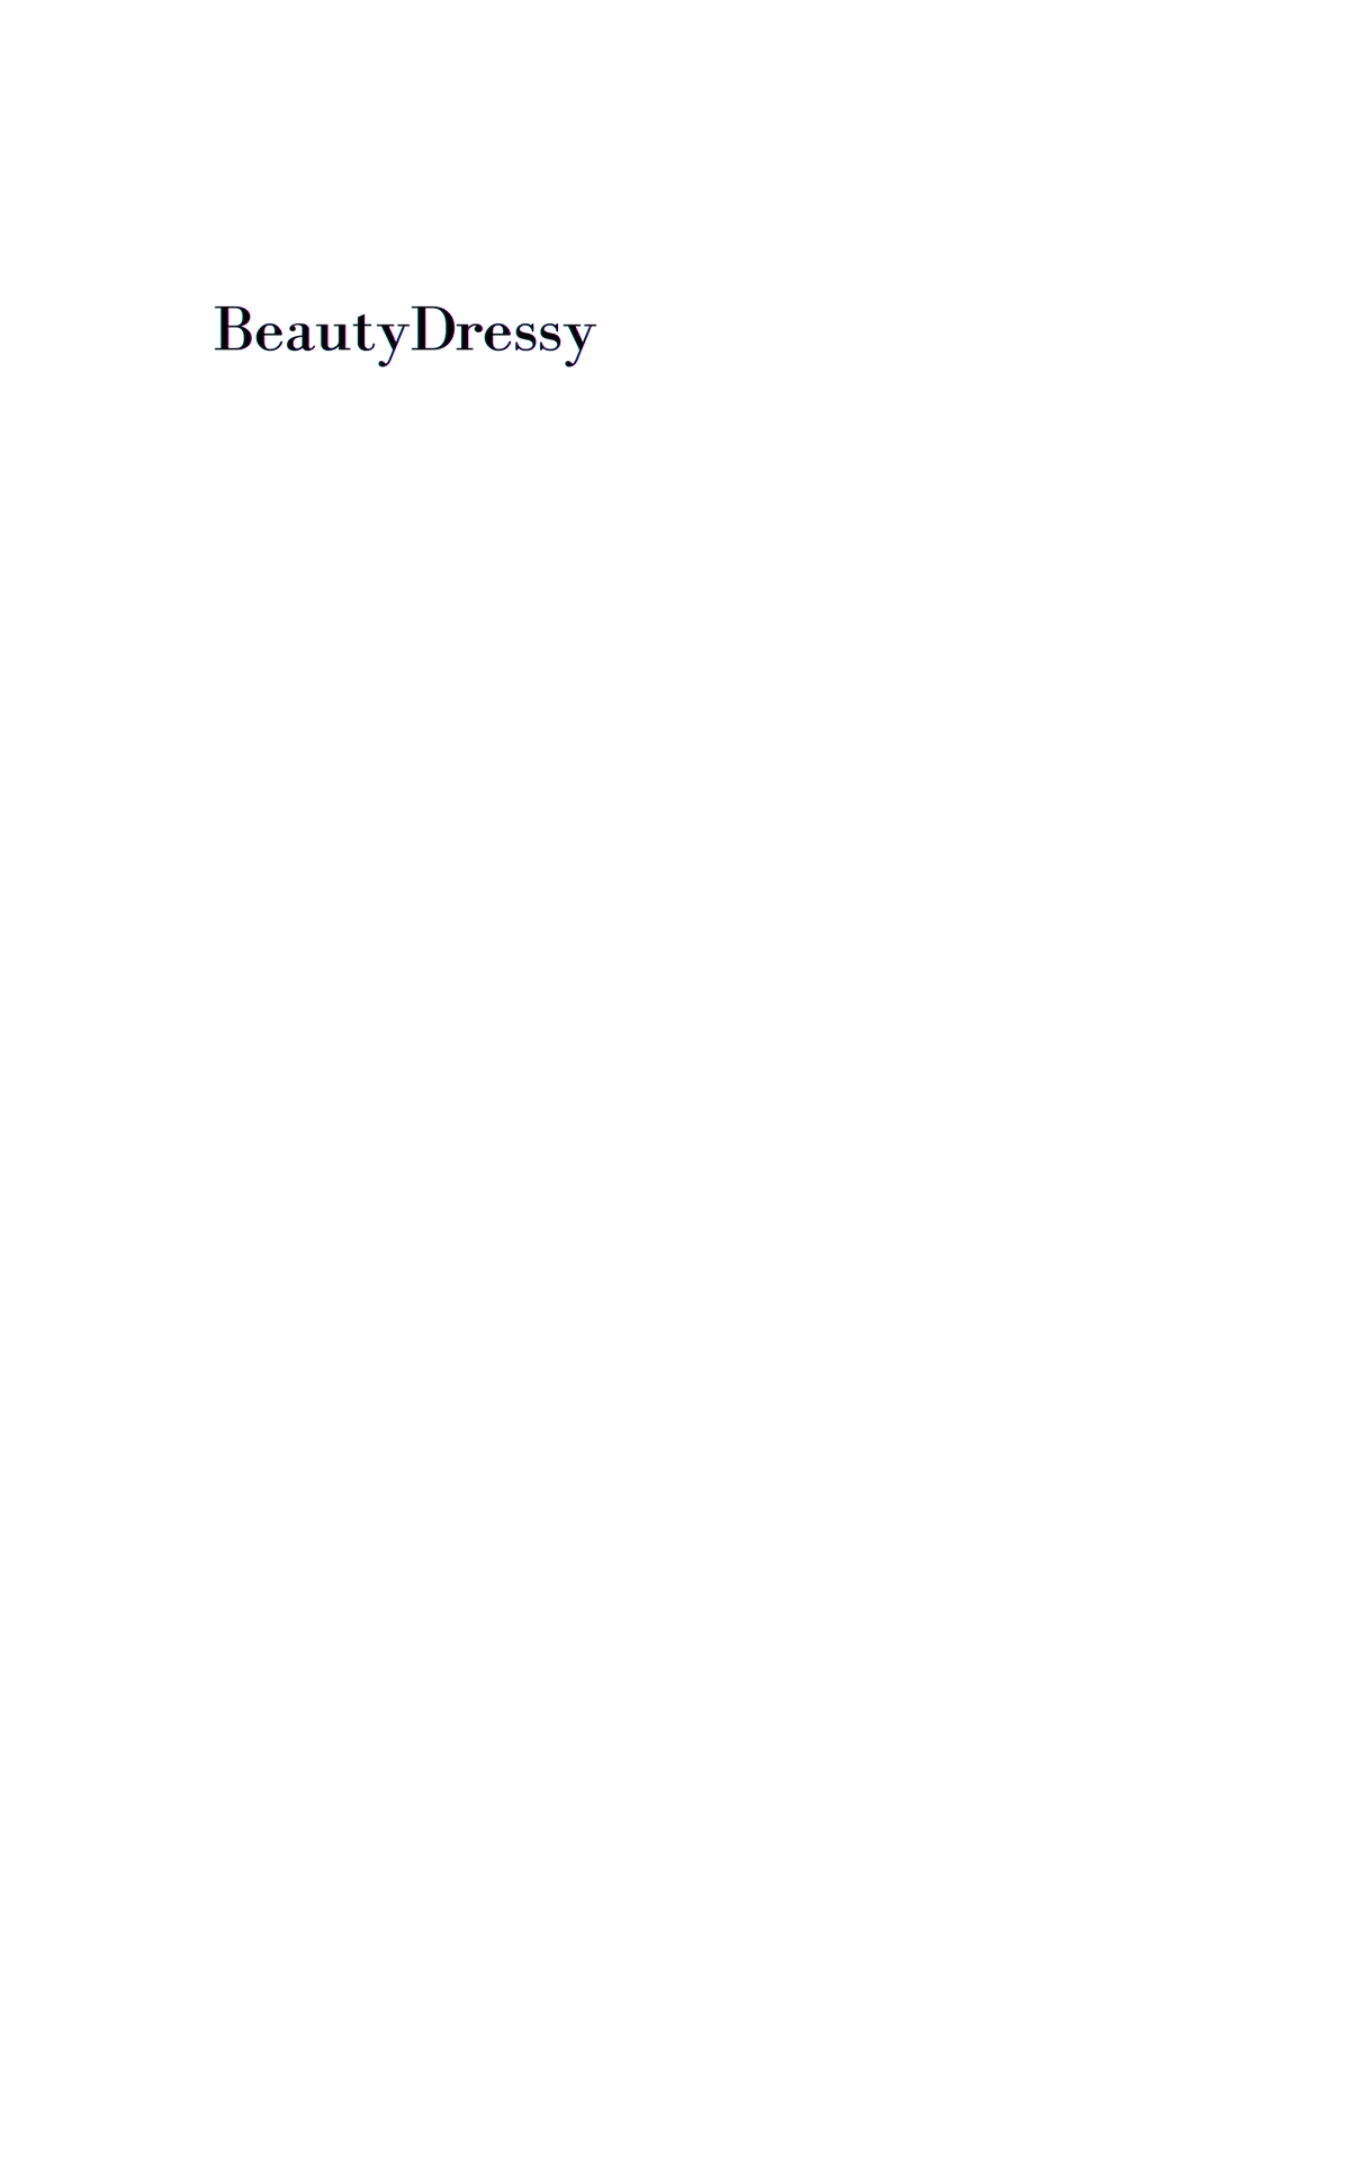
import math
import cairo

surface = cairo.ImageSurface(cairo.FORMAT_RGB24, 1370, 2172)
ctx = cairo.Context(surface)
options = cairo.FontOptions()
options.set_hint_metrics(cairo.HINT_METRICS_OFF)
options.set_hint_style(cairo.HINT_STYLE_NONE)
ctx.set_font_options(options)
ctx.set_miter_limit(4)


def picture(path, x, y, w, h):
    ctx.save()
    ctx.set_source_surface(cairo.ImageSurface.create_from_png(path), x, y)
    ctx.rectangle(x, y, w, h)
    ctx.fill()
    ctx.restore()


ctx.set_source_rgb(1, 1, 1)
ctx.paint()
picture("img1.png", 213, 305, 385, 63)
surface.write_to_png("page.png")
